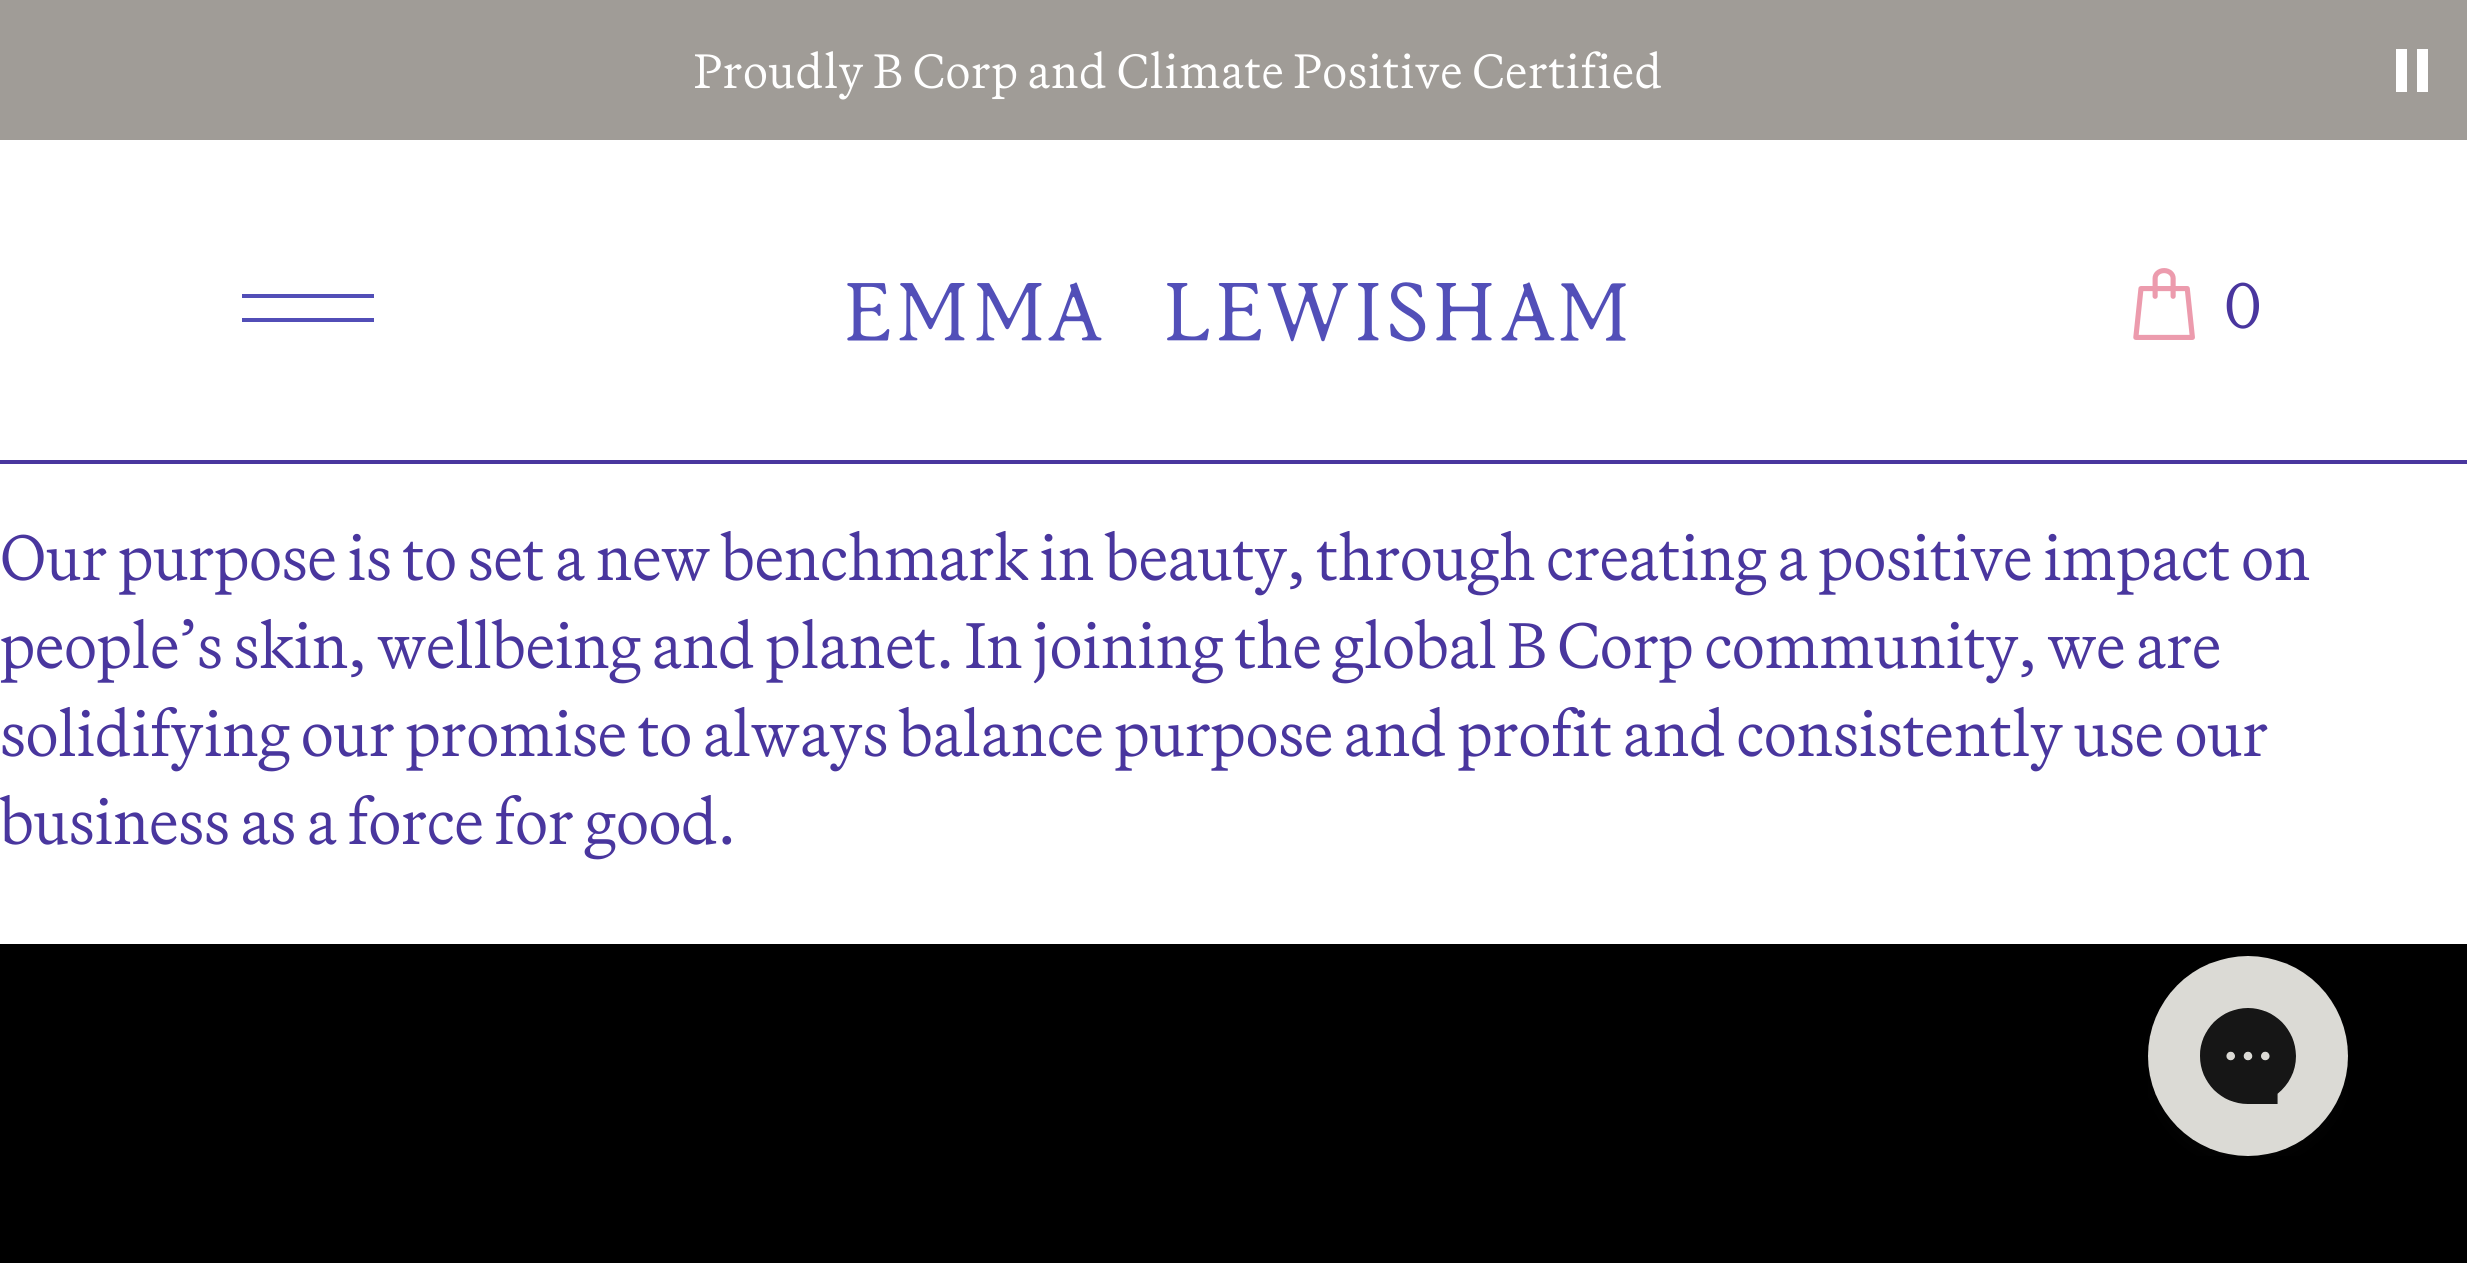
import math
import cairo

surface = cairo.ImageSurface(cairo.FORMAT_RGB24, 2467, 1263)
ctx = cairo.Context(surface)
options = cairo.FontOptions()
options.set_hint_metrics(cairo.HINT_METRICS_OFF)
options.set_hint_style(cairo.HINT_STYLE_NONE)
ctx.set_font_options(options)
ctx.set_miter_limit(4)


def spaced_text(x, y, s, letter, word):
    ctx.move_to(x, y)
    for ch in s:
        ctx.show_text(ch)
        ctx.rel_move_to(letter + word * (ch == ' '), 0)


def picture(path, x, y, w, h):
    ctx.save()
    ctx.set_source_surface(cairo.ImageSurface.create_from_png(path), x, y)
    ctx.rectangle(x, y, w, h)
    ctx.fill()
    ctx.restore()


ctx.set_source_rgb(1, 1, 1)
ctx.paint()
ctx.set_source_rgb(0.627, 0.612, 0.592)
ctx.rectangle(0, 0, 2467, 140)
ctx.fill()
ctx.select_font_face("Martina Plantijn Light")
ctx.set_font_size(48)
ctx.set_source_rgb(1, 1, 1)
spaced_text(694, 88, "Proudly B Corp and Climate Positive Certified", 0.95, 0)
ctx.rectangle(2396, 49, 11, 43)
ctx.fill()
ctx.rectangle(2417, 49, 11, 43)
ctx.fill()
ctx.set_source_rgb(0.286, 0.212, 0.62)
ctx.rectangle(0, 460, 2467, 4)
ctx.fill()
ctx.set_source_rgb(0.322, 0.306, 0.718)
ctx.rectangle(242, 294, 132, 4)
ctx.fill()
ctx.rectangle(242, 318, 132, 4)
ctx.fill()
picture("img1.png", 847, 282, 779, 60)
picture("img2.png", 2133, 268, 62, 72)
ctx.set_font_size(64)
ctx.set_source_rgb(0.286, 0.212, 0.62)
ctx.move_to(2224, 328)
ctx.show_text("0")
ctx.move_to(0, 580)
ctx.show_text("Our purpose is to set a new benchmark in beauty, through creating a positive impact on")
ctx.move_to(0, 668)
ctx.show_text("people’s skin, wellbeing and planet. In joining the global B Corp community, we are")
ctx.move_to(0, 756)
ctx.show_text("solidifying our promise to always balance purpose and profit and consistently use our")
ctx.move_to(0, 844)
ctx.show_text("business as a force for good.")
ctx.set_source_rgb(0, 0, 0)
ctx.rectangle(0, 944, 2467, 319)
ctx.fill()
picture("img3.png", 2148, 956, 200, 200)
surface.write_to_png("page.png")
